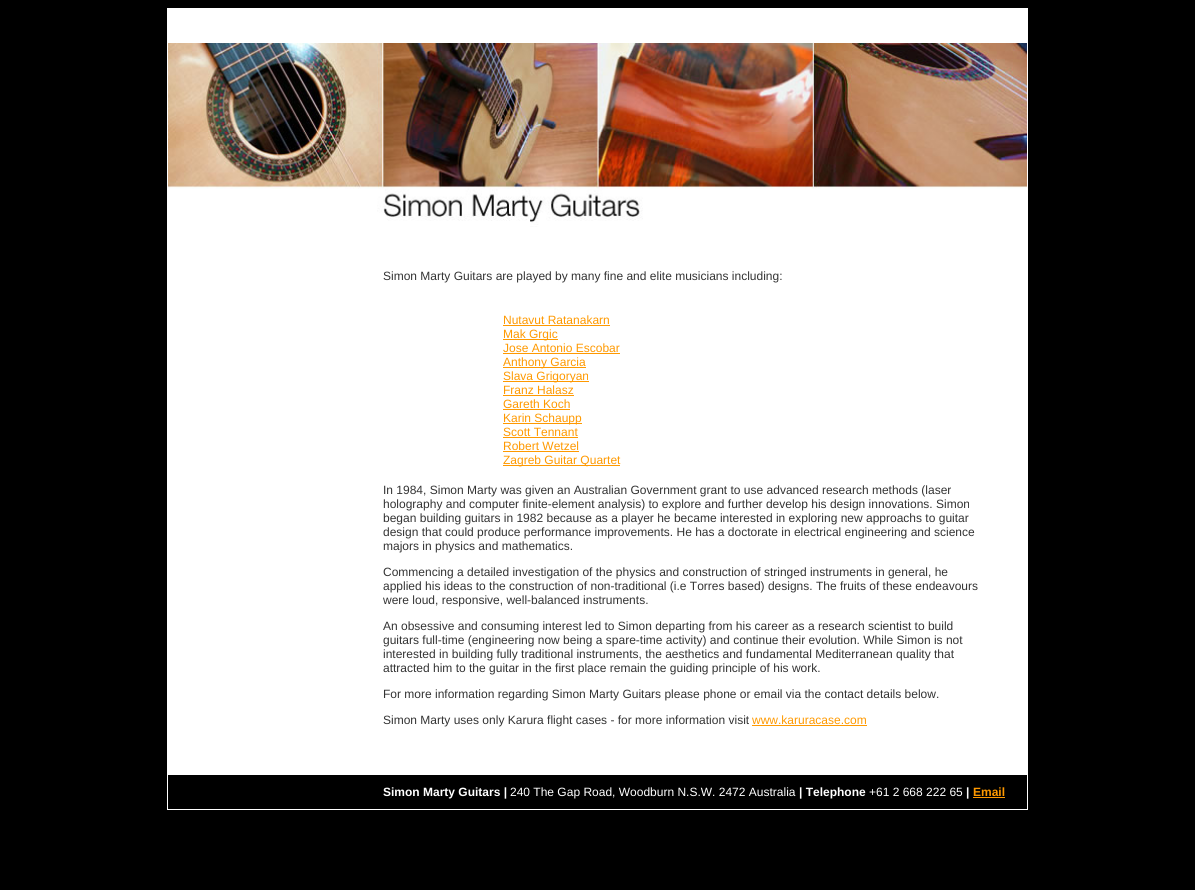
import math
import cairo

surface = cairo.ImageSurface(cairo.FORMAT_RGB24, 1195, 890)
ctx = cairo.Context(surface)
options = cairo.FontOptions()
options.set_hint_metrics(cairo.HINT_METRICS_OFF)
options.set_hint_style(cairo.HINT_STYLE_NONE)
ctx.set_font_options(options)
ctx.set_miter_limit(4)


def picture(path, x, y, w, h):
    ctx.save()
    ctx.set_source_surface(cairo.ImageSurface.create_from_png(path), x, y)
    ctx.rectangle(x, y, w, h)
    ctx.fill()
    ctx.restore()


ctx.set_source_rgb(0, 0, 0)
ctx.paint()
ctx.set_source_rgb(1, 1, 1)
ctx.rectangle(167, 8, 861, 802)
ctx.fill()
picture("img1.png", 168, 43, 859, 184)
ctx.select_font_face("Liberation Sans")
ctx.set_font_size(12)
ctx.set_source_rgb(0.2, 0.2, 0.2)
ctx.move_to(383, 280)
ctx.show_text("Simon Marty Guitars are played by many fine and elite musicians including:")
ctx.set_source_rgb(1, 0.6, 0)
ctx.move_to(503, 324)
ctx.show_text("Nutavut Ratanakarn")
ctx.rectangle(503, 325, 107, 1)
ctx.fill()
ctx.rectangle(503, 339, 55, 1)
ctx.fill()
ctx.move_to(503, 338)
ctx.show_text("Mak Grgic")
ctx.move_to(503, 352)
ctx.show_text("Jose Antonio Escobar")
ctx.rectangle(503, 353, 117, 1)
ctx.fill()
ctx.rectangle(503, 367, 83, 1)
ctx.fill()
ctx.move_to(503, 366)
ctx.show_text("Anthony Garcia")
ctx.rectangle(503, 381, 86, 1)
ctx.fill()
ctx.move_to(503, 380)
ctx.show_text("Slava Grigoryan")
ctx.move_to(503, 394)
ctx.show_text("Franz Halasz")
ctx.rectangle(503, 395, 71, 1)
ctx.fill()
ctx.move_to(503, 408)
ctx.show_text("Gareth Koch")
ctx.rectangle(503, 409, 67, 1)
ctx.fill()
ctx.rectangle(503, 423, 79, 1)
ctx.fill()
ctx.move_to(503, 422)
ctx.show_text("Karin Schaupp")
ctx.move_to(503, 436)
ctx.show_text("Scott Tennant")
ctx.rectangle(503, 437, 75, 1)
ctx.fill()
ctx.move_to(503, 450)
ctx.show_text("Robert Wetzel")
ctx.rectangle(503, 451, 76, 1)
ctx.fill()
ctx.rectangle(503, 465, 117, 1)
ctx.fill()
ctx.move_to(503, 464)
ctx.show_text("Zagreb Guitar Quartet")
ctx.set_source_rgb(0.2, 0.2, 0.2)
ctx.move_to(383, 494)
ctx.show_text("In 1984, Simon Marty was given an Australian Government grant to use advanced research methods (laser")
ctx.move_to(383, 508)
ctx.show_text("holography and computer finite-element analysis) to explore and further develop his design innovations. Simon")
ctx.move_to(383, 522)
ctx.show_text("began building guitars in 1982 because as a player he became interested in exploring new approachs to guitar")
ctx.move_to(383, 536)
ctx.show_text("design that could produce performance improvements. He has a doctorate in electrical engineering and science")
ctx.move_to(383, 550)
ctx.show_text("majors in physics and mathematics.")
ctx.move_to(383, 576)
ctx.show_text("Commencing a detailed investigation of the physics and construction of stringed instruments in general, he")
ctx.move_to(383, 590)
ctx.show_text("applied his ideas to the construction of non-traditional (i.e Torres based) designs. The fruits of these endeavours")
ctx.move_to(383, 604)
ctx.show_text("were loud, responsive, well-balanced instruments.")
ctx.move_to(383, 630)
ctx.show_text("An obsessive and consuming interest led to Simon departing from his career as a research scientist to build")
ctx.move_to(383, 644)
ctx.show_text("guitars full-time (engineering now being a spare-time activity) and continue their evolution. While Simon is not")
ctx.move_to(383, 658)
ctx.show_text("interested in building fully traditional instruments, the aesthetics and fundamental Mediterranean quality that")
ctx.move_to(383, 672)
ctx.show_text("attracted him to the guitar in the first place remain the guiding principle of his work.")
ctx.move_to(383, 698)
ctx.show_text("For more information regarding Simon Marty Guitars please phone or email via the contact details below.")
ctx.move_to(383, 724)
ctx.show_text("Simon Marty uses only Karura flight cases - for more information visit")
ctx.set_source_rgb(1, 0.6, 0)
ctx.move_to(752, 724)
ctx.show_text("www.karuracase.com")
ctx.rectangle(752, 725, 115, 1)
ctx.fill()
ctx.set_source_rgb(0, 0, 0)
ctx.rectangle(168, 775, 859, 34)
ctx.fill()
ctx.select_font_face("Liberation Sans", cairo.FONT_SLANT_NORMAL, cairo.FONT_WEIGHT_BOLD)
ctx.set_source_rgb(1, 1, 1)
ctx.move_to(383, 796)
ctx.show_text("Simon Marty Guitars |")
ctx.select_font_face("Liberation Sans")
ctx.move_to(510, 796)
ctx.show_text("240 The Gap Road, Woodburn N.S.W. 2472 Australia")
ctx.select_font_face("Liberation Sans", cairo.FONT_SLANT_NORMAL, cairo.FONT_WEIGHT_BOLD)
ctx.move_to(799, 796)
ctx.show_text("| Telephone")
ctx.select_font_face("Liberation Sans")
ctx.move_to(869, 796)
ctx.show_text("+61 2 668 222 65")
ctx.select_font_face("Liberation Sans", cairo.FONT_SLANT_NORMAL, cairo.FONT_WEIGHT_BOLD)
ctx.move_to(966, 796)
ctx.show_text("|")
ctx.set_source_rgb(1, 0.6, 0)
ctx.move_to(973, 796)
ctx.show_text("Email")
ctx.rectangle(973, 797, 32, 1)
ctx.fill()
surface.write_to_png("page.png")
